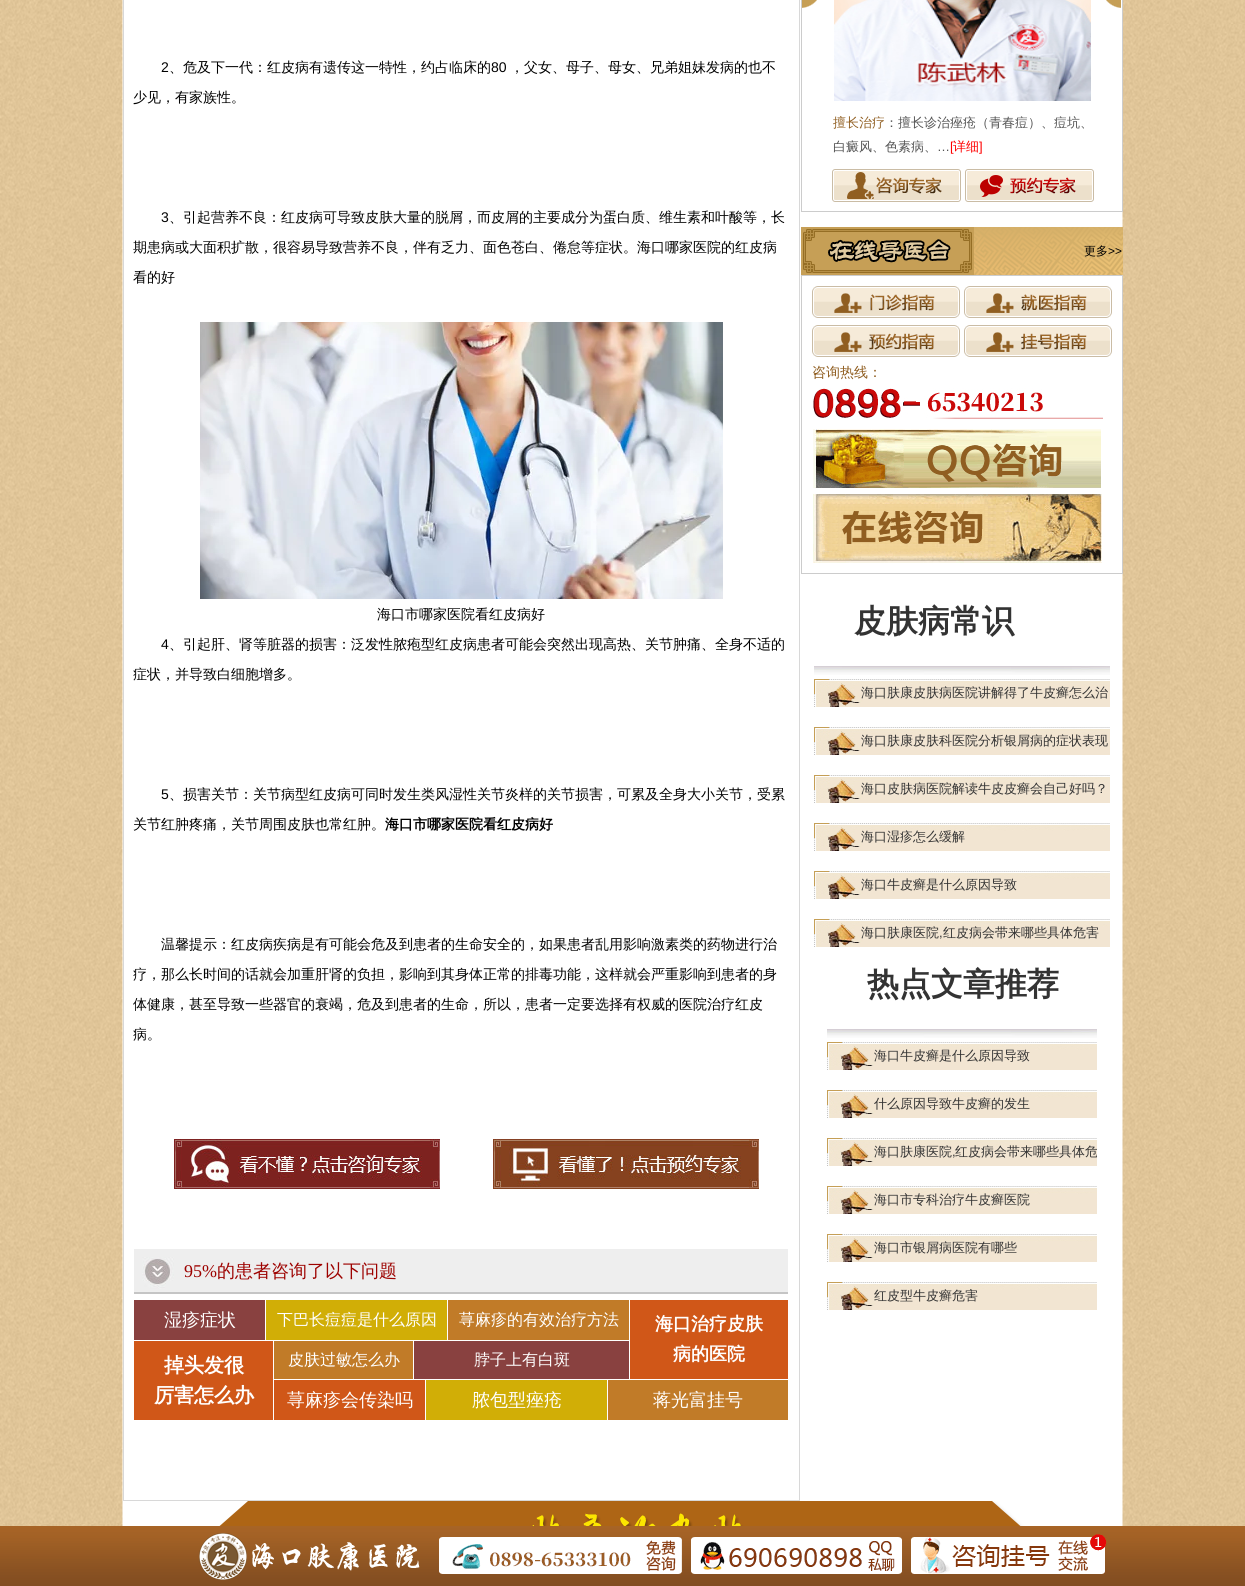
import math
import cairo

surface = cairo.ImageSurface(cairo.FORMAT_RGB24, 1245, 1586)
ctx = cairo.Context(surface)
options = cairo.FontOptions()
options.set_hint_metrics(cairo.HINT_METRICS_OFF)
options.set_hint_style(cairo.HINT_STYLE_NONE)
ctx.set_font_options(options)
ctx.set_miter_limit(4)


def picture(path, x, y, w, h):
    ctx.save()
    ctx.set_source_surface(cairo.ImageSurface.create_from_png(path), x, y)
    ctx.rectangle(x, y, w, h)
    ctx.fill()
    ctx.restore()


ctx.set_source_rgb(1, 1, 1)
ctx.paint()
picture("img1.png", 0, 0, 1245, 1526)
ctx.rectangle(123.5, -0.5, 676, 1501)
ctx.set_source_rgb(0.847, 0.847, 0.847)
ctx.set_line_width(1)
ctx.stroke()
ctx.select_font_face("Liberation Sans")
ctx.set_font_size(14)
ctx.set_source_rgb(0, 0, 0)
ctx.move_to(161, 72)
ctx.show_text("2")
ctx.select_font_face("WenQuanYi Zen Hei Medium")
ctx.move_to(169, 72)
ctx.show_text("、危及下一代：红皮病有遗传这一特性，约占临床的")
ctx.select_font_face("Liberation Sans")
ctx.move_to(491, 72)
ctx.show_text("80")
ctx.select_font_face("WenQuanYi Zen Hei Medium")
ctx.move_to(510, 72)
ctx.show_text("，父女、母子、母女、兄弟姐妹发病的也不")
ctx.move_to(133, 102)
ctx.show_text("少见，有家族性。")
ctx.select_font_face("Liberation Sans")
ctx.move_to(161, 222)
ctx.show_text("3")
ctx.select_font_face("WenQuanYi Zen Hei Medium")
ctx.move_to(169, 222)
ctx.show_text("、引起营养不良：红皮病可导致皮肤大量的脱屑，而皮屑的主要成分为蛋白质、维生素和叶酸等，长")
ctx.move_to(133, 252)
ctx.show_text("期患病或大面积扩散，很容易导致营养不良，伴有乏力、面色苍白、倦怠等症状。海口哪家医院的红皮病")
ctx.move_to(133, 282)
ctx.show_text("看的好")
picture("img2.png", 200, 322, 523, 277)
ctx.move_to(377, 619)
ctx.show_text("海口市哪家医院看红皮病好")
ctx.select_font_face("Liberation Sans")
ctx.move_to(161, 649)
ctx.show_text("4")
ctx.select_font_face("WenQuanYi Zen Hei Medium")
ctx.move_to(169, 649)
ctx.show_text("、引起肝、肾等脏器的损害：泛发性脓疱型红皮病患者可能会突然出现高热、关节肿痛、全身不适的")
ctx.move_to(133, 679)
ctx.show_text("症状，并导致白细胞增多。")
ctx.select_font_face("Liberation Sans")
ctx.move_to(161, 799)
ctx.show_text("5")
ctx.select_font_face("WenQuanYi Zen Hei Medium")
ctx.move_to(169, 799)
ctx.show_text("、损害关节：关节病型红皮病可同时发生类风湿性关节炎样的关节损害，可累及全身大小关节，受累")
ctx.move_to(133, 829)
ctx.show_text("关节红肿疼痛，关节周围皮肤也常红肿。")
ctx.select_font_face("WenQuanYi Zen Hei", cairo.FONT_SLANT_NORMAL, cairo.FONT_WEIGHT_BOLD)
ctx.move_to(385, 829)
ctx.show_text("海口市哪家医院看红皮病好")
ctx.select_font_face("WenQuanYi Zen Hei Medium")
ctx.move_to(161, 949)
ctx.show_text("温馨提示：红皮病疾病是有可能会危及到患者的生命安全的，如果患者乱用影响激素类的药物进行治")
ctx.move_to(133, 979)
ctx.show_text("疗，那么长时间的话就会加重肝肾的负担，影响到其身体正常的排毒功能，这样就会严重影响到患者的身")
ctx.move_to(133, 1009)
ctx.show_text("体健康，甚至导致一些器官的衰竭，危及到患者的生命，所以，患者一定要选择有权威的医院治疗红皮")
ctx.move_to(133, 1039)
ctx.show_text("病。")
picture("img3.png", 174, 1139, 266, 50)
picture("img4.png", 493, 1139, 266, 50)
picture("img5.png", 134, 1249, 654, 45)
ctx.select_font_face("Liberation Serif")
ctx.set_font_size(18)
ctx.set_source_rgb(0.616, 0.008, 0)
ctx.move_to(184, 1277)
ctx.show_text("95%")
ctx.select_font_face("WenQuanYi Zen Hei Medium")
ctx.move_to(217, 1277)
ctx.show_text("的患者咨询了以下问题")
ctx.set_source_rgb(0.537, 0.255, 0.251)
ctx.rectangle(134, 1300, 131, 40)
ctx.fill()
ctx.set_source_rgb(1, 1, 1)
ctx.move_to(164, 1326)
ctx.show_text("湿疹症状")
ctx.set_source_rgb(0.82, 0.682, 0.027)
ctx.rectangle(266, 1300, 181, 40)
ctx.fill()
ctx.set_font_size(16)
ctx.set_source_rgb(1, 1, 1)
ctx.move_to(277, 1325)
ctx.show_text("下巴长痘痘是什么原因")
ctx.set_source_rgb(0.757, 0.482, 0.157)
ctx.rectangle(448, 1300, 181, 40)
ctx.fill()
ctx.set_source_rgb(1, 1, 1)
ctx.move_to(459, 1325)
ctx.show_text("荨麻疹的有效治疗方法")
ctx.set_source_rgb(0.816, 0.341, 0.094)
ctx.rectangle(630, 1300, 158, 79)
ctx.fill()
ctx.select_font_face("WenQuanYi Zen Hei", cairo.FONT_SLANT_NORMAL, cairo.FONT_WEIGHT_BOLD)
ctx.set_font_size(18)
ctx.set_source_rgb(1, 1, 1)
ctx.move_to(655, 1330)
ctx.show_text("海口治疗皮肤")
ctx.move_to(673, 1360)
ctx.show_text("病的医院")
ctx.set_source_rgb(0.816, 0.341, 0.094)
ctx.rectangle(134, 1341, 139, 79)
ctx.fill()
ctx.set_font_size(20)
ctx.set_source_rgb(1, 1, 1)
ctx.move_to(164, 1372)
ctx.show_text("掉头发很")
ctx.move_to(154, 1402)
ctx.show_text("厉害怎么办")
ctx.set_source_rgb(0.757, 0.482, 0.157)
ctx.rectangle(274, 1341, 139, 38)
ctx.fill()
ctx.select_font_face("WenQuanYi Zen Hei Medium")
ctx.set_font_size(16)
ctx.set_source_rgb(1, 1, 1)
ctx.move_to(288, 1365)
ctx.show_text("皮肤过敏怎么办")
ctx.set_source_rgb(0.537, 0.255, 0.251)
ctx.rectangle(414, 1341, 215, 38)
ctx.fill()
ctx.set_source_rgb(1, 1, 1)
ctx.move_to(474, 1365)
ctx.show_text("脖子上有白斑")
ctx.set_source_rgb(0.816, 0.341, 0.094)
ctx.rectangle(274, 1380, 151, 40)
ctx.fill()
ctx.set_font_size(18)
ctx.set_source_rgb(1, 1, 1)
ctx.move_to(287, 1406)
ctx.show_text("荨麻疹会传染吗")
ctx.set_source_rgb(0.82, 0.682, 0.027)
ctx.rectangle(426, 1380, 181, 40)
ctx.fill()
ctx.set_source_rgb(1, 1, 1)
ctx.move_to(472, 1406)
ctx.show_text("脓包型痤疮")
ctx.set_source_rgb(0.757, 0.482, 0.157)
ctx.rectangle(608, 1380, 180, 40)
ctx.fill()
ctx.set_source_rgb(1, 1, 1)
ctx.move_to(653, 1406)
ctx.show_text("蒋光富挂号")
ctx.set_source_rgb(0.8, 0.8, 0.8)
ctx.rectangle(1122, 0, 1, 212)
ctx.fill()
ctx.rectangle(801, 211, 322, 1)
ctx.fill()
ctx.rectangle(801, 0, 1, 212)
ctx.fill()
picture("img6.png", 802, 0, 15, 8)
picture("img7.png", 1106, 0, 15, 8)
picture("img8.png", 834, 0, 257, 101)
ctx.set_font_size(13)
ctx.set_source_rgb(0.565, 0.369, 0.129)
ctx.move_to(833, 127)
ctx.show_text("擅长治疗")
ctx.set_source_rgb(0.329, 0.329, 0.329)
ctx.move_to(885, 127)
ctx.show_text("：擅长诊治痤疮（青春痘）、痘坑、")
ctx.move_to(833, 151)
ctx.show_text("白癜风、色素病、")
ctx.select_font_face("Liberation Sans")
ctx.move_to(937, 151)
ctx.show_text("…")
ctx.set_source_rgb(1, 0, 0)
ctx.move_to(950, 151)
ctx.show_text("[")
ctx.select_font_face("WenQuanYi Zen Hei Medium")
ctx.move_to(953, 151)
ctx.show_text("详细")
ctx.select_font_face("Liberation Sans")
ctx.move_to(979, 151)
ctx.show_text("]")
picture("img9.png", 832, 169, 129, 33)
picture("img10.png", 965, 169, 129, 33)
picture("img11.png", 801, 227, 322, 48)
ctx.select_font_face("WenQuanYi Zen Hei Medium")
ctx.set_font_size(12)
ctx.set_source_rgb(0, 0, 0)
ctx.move_to(1084, 255)
ctx.show_text("更多")
ctx.select_font_face("Liberation Sans")
ctx.move_to(1108, 255)
ctx.show_text(">>")
ctx.rectangle(801.5, 275.5, 321, 298)
ctx.set_source_rgb(0.8, 0.8, 0.8)
ctx.stroke()
picture("img12.png", 812, 286, 148, 32)
picture("img13.png", 964, 286, 148, 32)
picture("img14.png", 812, 325, 148, 32)
picture("img15.png", 964, 325, 148, 32)
ctx.select_font_face("WenQuanYi Zen Hei Medium")
ctx.set_font_size(14)
ctx.set_source_rgb(0.565, 0.369, 0.129)
ctx.move_to(812, 377)
ctx.show_text("咨询热线：")
picture("img16.png", 813, 388, 290, 31)
picture("img17.png", 813, 429, 288, 59)
picture("img18.png", 813, 494, 289, 69)
ctx.select_font_face("WenQuanYi Zen Hei", cairo.FONT_SLANT_NORMAL, cairo.FONT_WEIGHT_BOLD)
ctx.set_font_size(32)
ctx.set_source_rgb(0.2, 0.2, 0.2)
ctx.move_to(854, 632)
ctx.show_text("皮肤病常识")
picture("img19.png", 814, 666, 296, 9)
picture("img20.png", 814, 679, 296, 28)
ctx.select_font_face("WenQuanYi Zen Hei Medium")
ctx.set_font_size(13)
ctx.move_to(861, 697)
ctx.show_text("海口肤康皮肤病医院讲解得了牛皮癣怎么治")
picture("img20.png", 814, 727, 296, 28)
ctx.move_to(861, 745)
ctx.show_text("海口肤康皮肤科医院分析银屑病的症状表现")
picture("img20.png", 814, 775, 296, 28)
ctx.move_to(861, 793)
ctx.show_text("海口皮肤病医院解读牛皮皮癣会自己好吗？")
picture("img20.png", 814, 823, 296, 28)
ctx.move_to(861, 841)
ctx.show_text("海口湿疹怎么缓解")
picture("img20.png", 814, 871, 296, 28)
ctx.move_to(861, 889)
ctx.show_text("海口牛皮癣是什么原因导致")
picture("img20.png", 814, 919, 296, 28)
ctx.move_to(861, 937)
ctx.show_text("海口肤康医院 红皮病会带来哪些具体危害")
ctx.select_font_face("Liberation Sans")
ctx.move_to(939, 937)
ctx.show_text(",")
ctx.select_font_face("WenQuanYi Zen Hei", cairo.FONT_SLANT_NORMAL, cairo.FONT_WEIGHT_BOLD)
ctx.set_font_size(32)
ctx.move_to(867, 995)
ctx.show_text("热点文章推荐")
picture("img21.png", 827, 1029, 270, 9)
picture("img22.png", 827, 1042, 270, 28)
ctx.select_font_face("WenQuanYi Zen Hei Medium")
ctx.set_font_size(13)
ctx.move_to(874, 1060)
ctx.show_text("海口牛皮癣是什么原因导致")
picture("img22.png", 827, 1090, 270, 28)
ctx.move_to(874, 1108)
ctx.show_text("什么原因导致牛皮癣的发生")
picture("img22.png", 827, 1138, 270, 28)
ctx.move_to(874, 1156)
ctx.show_text("海口肤康医院")
ctx.select_font_face("Liberation Sans")
ctx.move_to(952, 1156)
ctx.show_text(",")
ctx.save()
ctx.rectangle(827, 1138, 270, 28)
ctx.clip()
ctx.select_font_face("WenQuanYi Zen Hei Medium")
ctx.move_to(955, 1156)
ctx.show_text("红皮病会带来哪些具体危")
ctx.restore()
picture("img22.png", 827, 1186, 270, 28)
ctx.select_font_face("WenQuanYi Zen Hei Medium")
ctx.move_to(874, 1204)
ctx.show_text("海口市专科治疗牛皮癣医院")
picture("img22.png", 827, 1234, 270, 28)
ctx.move_to(874, 1252)
ctx.show_text("海口市银屑病医院有哪些")
picture("img22.png", 827, 1282, 270, 28)
ctx.move_to(874, 1300)
ctx.show_text("红皮型牛皮癣危害")
picture("img23.png", 133, 1501, 980, 25)
picture("img24.png", 0, 1526, 1245, 60)
picture("img25.png", 199, 1533, 221, 47)
picture("img26.png", 439, 1537, 243, 37)
picture("img27.png", 691, 1537, 211, 37)
picture("img28.png", 911, 1534, 196, 40)
surface.write_to_png("page.png")
